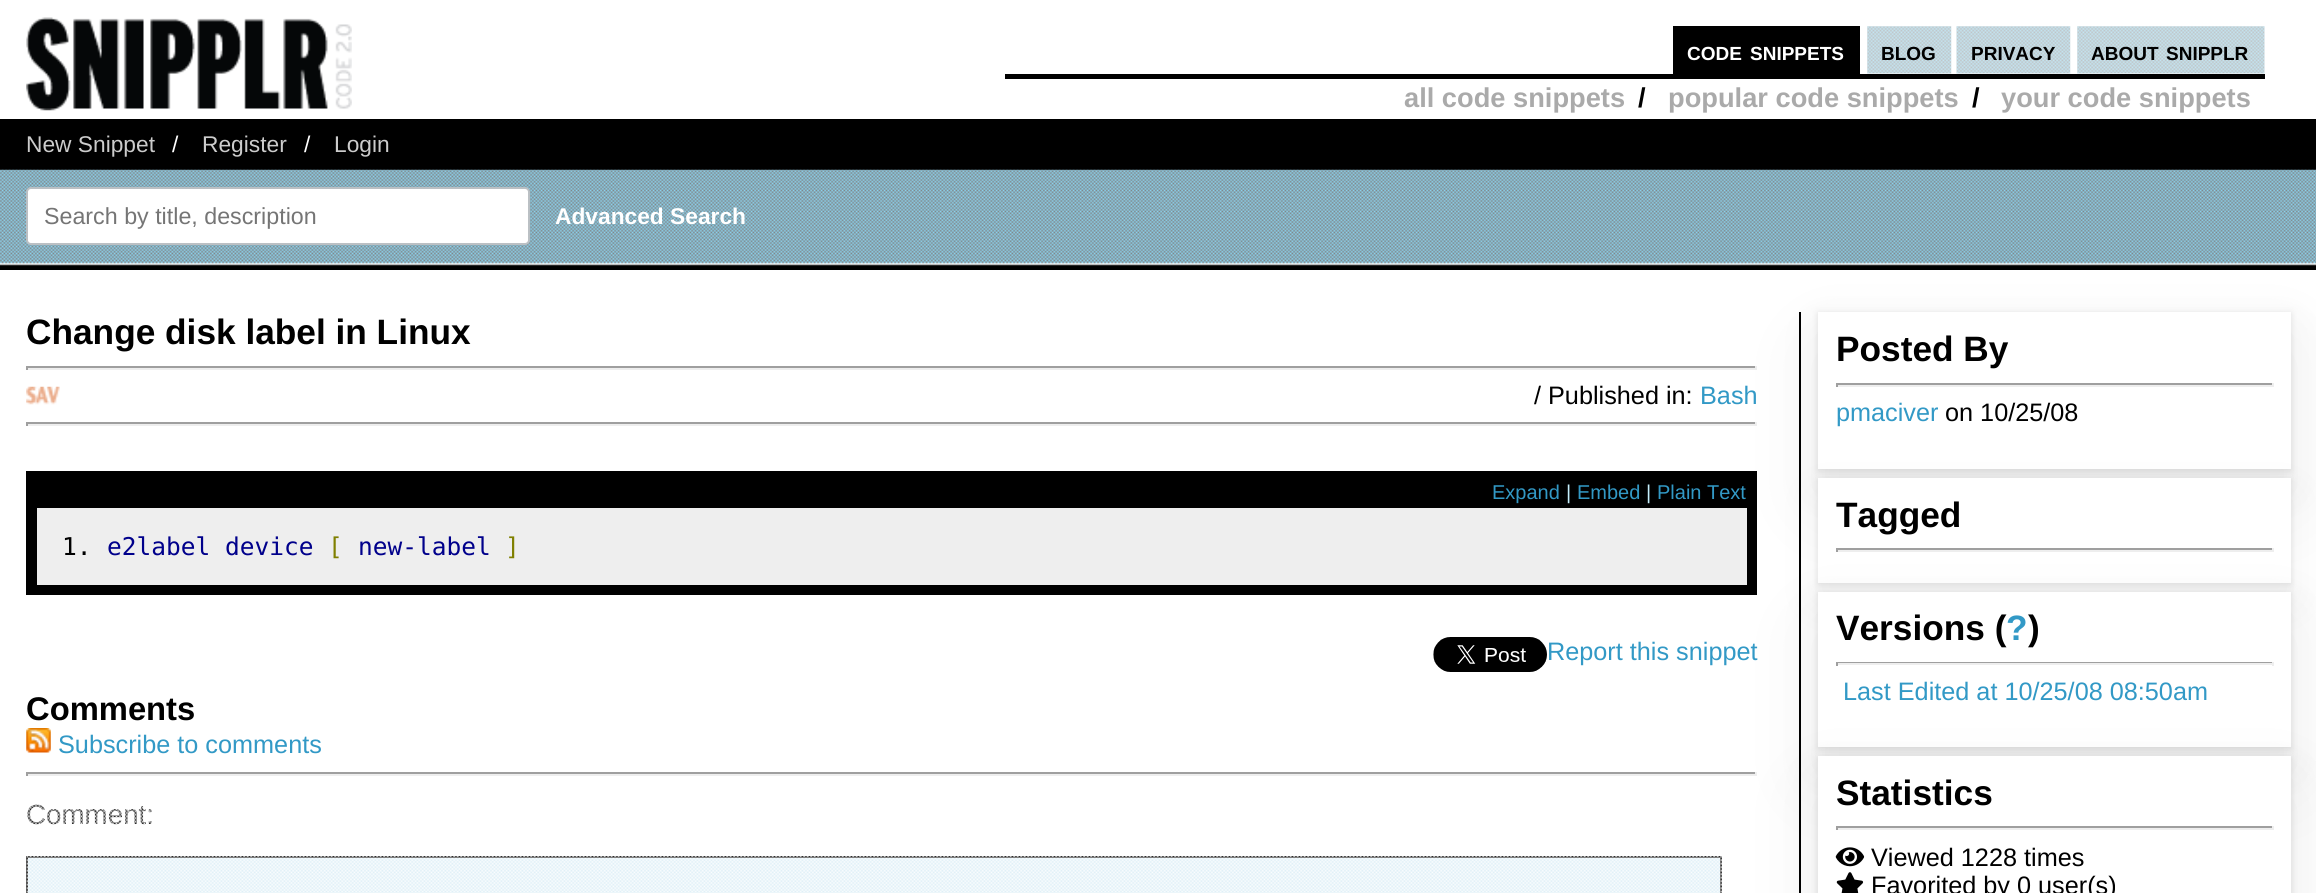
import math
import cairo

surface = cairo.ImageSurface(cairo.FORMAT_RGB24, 2316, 893)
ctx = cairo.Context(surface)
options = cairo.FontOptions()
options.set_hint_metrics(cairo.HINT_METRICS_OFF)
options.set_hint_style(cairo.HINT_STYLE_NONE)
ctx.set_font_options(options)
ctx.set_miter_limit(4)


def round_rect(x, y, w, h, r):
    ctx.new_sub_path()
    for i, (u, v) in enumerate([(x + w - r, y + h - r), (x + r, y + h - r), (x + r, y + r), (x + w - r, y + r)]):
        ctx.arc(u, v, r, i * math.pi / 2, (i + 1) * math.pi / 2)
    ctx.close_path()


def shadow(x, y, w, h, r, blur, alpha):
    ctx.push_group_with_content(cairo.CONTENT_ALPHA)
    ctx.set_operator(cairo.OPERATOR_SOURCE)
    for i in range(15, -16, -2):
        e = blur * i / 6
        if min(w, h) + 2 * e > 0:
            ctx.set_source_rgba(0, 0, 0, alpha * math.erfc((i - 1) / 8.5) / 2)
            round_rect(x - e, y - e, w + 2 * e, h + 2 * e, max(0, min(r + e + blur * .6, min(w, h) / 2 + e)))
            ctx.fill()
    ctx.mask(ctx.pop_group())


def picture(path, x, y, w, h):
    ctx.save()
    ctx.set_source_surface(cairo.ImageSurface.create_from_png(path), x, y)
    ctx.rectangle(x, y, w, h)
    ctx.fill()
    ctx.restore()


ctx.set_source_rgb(0, 0, 0)
ctx.paint()
ctx.set_source_rgb(1, 1, 1)
ctx.rectangle(0, 0, 2316, 119)
ctx.fill()
picture("img1.png", 26, 17, 326, 94)
ctx.set_source_rgb(0, 0, 0)
ctx.rectangle(1005, 74, 1260, 5)
ctx.fill()
picture("img2.png", 1867, 26, 85, 48)
picture("img3.png", 1956, 26, 115, 48)
picture("img4.png", 2077, 26, 188, 48)
ctx.rectangle(1673, 26, 187, 48)
ctx.fill()
ctx.select_font_face("Liberation Sans", cairo.FONT_SLANT_NORMAL, cairo.FONT_WEIGHT_BOLD)
ctx.set_font_size(19)
ctx.set_source_rgb(1, 1, 1)
ctx.move_to(1687, 60)
ctx.show_text("CODE")
ctx.move_to(1750, 60)
ctx.show_text("SNIPPETS")
ctx.set_font_size(27.25)
ctx.set_source_rgb(0.667, 0.667, 0.667)
ctx.move_to(1404, 107)
ctx.show_text("all code snippets")
ctx.set_source_rgb(0, 0, 0)
ctx.move_to(1638, 107)
ctx.show_text("/")
ctx.set_source_rgb(0.667, 0.667, 0.667)
ctx.move_to(1668, 107)
ctx.show_text("popular code snippets")
ctx.set_source_rgb(0, 0, 0)
ctx.move_to(1972, 107)
ctx.show_text("/")
ctx.set_source_rgb(0.667, 0.667, 0.667)
ctx.move_to(2001, 107)
ctx.show_text("your code snippets")
ctx.set_font_size(19)
ctx.set_source_rgb(0, 0, 0)
ctx.move_to(1881, 60)
ctx.show_text("BLOG")
ctx.move_to(1971, 60)
ctx.show_text("PRIVACY")
ctx.move_to(2091, 60)
ctx.show_text("ABOUT")
ctx.move_to(2166, 60)
ctx.show_text("SNIPPLR")
ctx.select_font_face("Liberation Sans")
ctx.set_font_size(22.75)
ctx.set_source_rgb(0.8, 0.8, 0.8)
ctx.move_to(26, 152)
ctx.show_text("New Snippet")
ctx.set_source_rgb(1, 1, 1)
ctx.move_to(172, 152)
ctx.show_text("/")
ctx.set_source_rgb(0.8, 0.8, 0.8)
ctx.move_to(202, 152)
ctx.show_text("Register")
ctx.set_source_rgb(1, 1, 1)
ctx.move_to(304, 152)
ctx.show_text("/")
ctx.set_source_rgb(0.8, 0.8, 0.8)
ctx.move_to(334, 152)
ctx.show_text("Login")
picture("img5.png", 0, 169, 2316, 97)
ctx.set_source_rgb(1, 1, 1)
round_rect(27, 188, 502, 56, 4)
ctx.fill_preserve()
ctx.set_source_rgb(0.733, 0.753, 0.769)
ctx.stroke()
ctx.set_font_size(23.25)
ctx.set_source_rgb(0.459, 0.459, 0.459)
ctx.move_to(44, 224)
ctx.show_text("Search by title, description")
ctx.select_font_face("Liberation Sans", cairo.FONT_SLANT_NORMAL, cairo.FONT_WEIGHT_BOLD)
ctx.set_font_size(22.75)
ctx.set_source_rgb(1, 1, 1)
ctx.move_to(555, 224)
ctx.show_text("Advanced Search")
ctx.rectangle(0, 270, 2316, 623)
ctx.fill()
ctx.set_source_rgb(0, 0, 0)
ctx.rectangle(1799, 312, 2, 581)
ctx.fill()
ctx.set_font_size(35.25)
ctx.move_to(26, 344)
ctx.show_text("Change disk label in Linux")
ctx.set_source_rgb(0.624, 0.624, 0.624)
ctx.rectangle(26, 366, 1731, 2)
ctx.fill()
ctx.set_source_rgb(0.933, 0.933, 0.933)
ctx.rectangle(1755, 366, 2, 4)
ctx.fill()
ctx.rectangle(26, 368, 1731, 2)
ctx.fill()
ctx.set_source_rgb(0.624, 0.624, 0.624)
ctx.rectangle(26, 366, 2, 4)
ctx.fill()
picture("img6.png", 26, 386, 34, 19)
ctx.select_font_face("Liberation Sans")
ctx.set_font_size(25.25)
ctx.set_source_rgb(0, 0, 0)
ctx.move_to(1534, 404)
ctx.show_text("/ Published in:")
ctx.set_source_rgb(0.196, 0.6, 0.776)
ctx.move_to(1700, 404)
ctx.show_text("Bash")
ctx.set_source_rgb(0.624, 0.624, 0.624)
ctx.rectangle(26, 422, 1731, 2)
ctx.fill()
ctx.set_source_rgb(0.933, 0.933, 0.933)
ctx.rectangle(1755, 422, 2, 4)
ctx.fill()
ctx.rectangle(26, 424, 1731, 2)
ctx.fill()
ctx.set_source_rgb(0.624, 0.624, 0.624)
ctx.rectangle(26, 422, 2, 4)
ctx.fill()
ctx.set_source_rgb(0, 0, 0)
ctx.rectangle(26, 471, 1731, 124)
ctx.fill()
ctx.set_font_size(20)
ctx.set_source_rgb(0.196, 0.6, 0.776)
ctx.move_to(1492, 499)
ctx.show_text("Expand")
ctx.set_source_rgb(0.773, 0.937, 0.988)
ctx.move_to(1566, 499)
ctx.show_text("|")
ctx.set_source_rgb(0.196, 0.6, 0.776)
ctx.move_to(1577, 499)
ctx.show_text("Embed")
ctx.set_source_rgb(0.773, 0.937, 0.988)
ctx.move_to(1646, 499)
ctx.show_text("|")
ctx.set_source_rgb(0.196, 0.6, 0.776)
ctx.move_to(1657, 499)
ctx.show_text("Plain Text")
ctx.set_source_rgb(0.933, 0.933, 0.933)
ctx.rectangle(37, 508, 1710, 77)
ctx.fill()
ctx.select_font_face("DejaVu Sans Mono")
ctx.set_font_size(24.5)
ctx.set_source_rgb(0, 0, 0)
ctx.move_to(62, 555)
ctx.show_text("1.")
ctx.set_source_rgb(0, 0, 0.545)
ctx.move_to(107, 555)
ctx.show_text("e2label device")
ctx.set_source_rgb(0.502, 0.502, 0)
ctx.move_to(328, 555)
ctx.show_text("[")
ctx.set_source_rgb(0, 0, 0.545)
ctx.move_to(358, 555)
ctx.show_text("new-label")
ctx.set_source_rgb(0.502, 0.502, 0)
ctx.move_to(505, 555)
ctx.show_text("]")
picture("img7.png", 1433, 637, 114, 35)
ctx.select_font_face("Liberation Sans")
ctx.set_font_size(25.25)
ctx.set_source_rgb(0.196, 0.6, 0.776)
ctx.move_to(1547, 660)
ctx.show_text("Report this snippet")
ctx.select_font_face("Liberation Sans", cairo.FONT_SLANT_NORMAL, cairo.FONT_WEIGHT_BOLD)
ctx.set_font_size(32.75)
ctx.set_source_rgb(0, 0, 0)
ctx.move_to(26, 720)
ctx.show_text("Comments")
picture("img8.png", 26, 728, 25, 25)
ctx.select_font_face("Liberation Sans")
ctx.set_font_size(25.25)
ctx.set_source_rgb(0.196, 0.6, 0.776)
ctx.move_to(58, 753)
ctx.show_text("Subscribe to comments")
ctx.set_source_rgb(0.624, 0.624, 0.624)
ctx.rectangle(26, 772, 1731, 2)
ctx.fill()
ctx.set_source_rgb(0.933, 0.933, 0.933)
ctx.rectangle(1755, 772, 2, 4)
ctx.fill()
ctx.rectangle(26, 774, 1731, 2)
ctx.fill()
ctx.set_source_rgb(0.624, 0.624, 0.624)
ctx.rectangle(26, 772, 2, 4)
ctx.fill()
ctx.set_font_size(27.75)
ctx.set_source_rgb(0, 0, 0)
ctx.move_to(26, 824)
ctx.show_text("Comment:")
ctx.set_source_rgb(0, 0, 0)
shadow(1818, 313, 473, 158, 0, 3.5, 0.1)
shadow(1818, 347, 473, 157, 0, 42, 0.05)
shadow(1818, 329, 473, 158, 0, 22, 0.05)
ctx.set_source_rgb(1, 1, 1)
ctx.rectangle(1818, 312, 473, 157)
ctx.fill()
ctx.set_source_rgb(0, 0, 0)
shadow(1818, 480, 473, 105, 0, 3.5, 0.1)
shadow(1818, 495, 473, 105, 0, 22, 0.05)
ctx.set_source_rgb(1, 1, 1)
ctx.rectangle(1818, 478, 473, 105)
ctx.fill()
ctx.set_source_rgb(0, 0, 0)
shadow(1818, 627, 473, 155, 0, 42, 0.05)
shadow(1818, 593, 473, 156, 0, 3.5, 0.1)
shadow(1818, 609, 473, 156, 0, 22, 0.05)
ctx.set_source_rgb(1, 1, 1)
ctx.rectangle(1818, 592, 473, 155)
ctx.fill()
ctx.set_source_rgb(0, 0, 0)
shadow(1818, 791, 473, 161, 0, 42, 0.05)
ctx.set_source_rgb(0.855, 0.929, 0.961)
ctx.rectangle(27, 857, 1694, 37)
ctx.fill_preserve()
ctx.set_source_rgb(0, 0, 0)
ctx.stroke()
picture("img9.png", 26, 804, 1696, 89)
ctx.select_font_face("Liberation Sans", cairo.FONT_SLANT_NORMAL, cairo.FONT_WEIGHT_BOLD)
ctx.set_font_size(35.25)
ctx.move_to(1836, 361)
ctx.show_text("Posted By")
ctx.set_source_rgb(0.624, 0.624, 0.624)
ctx.rectangle(1836, 383, 437, 2)
ctx.fill()
ctx.set_source_rgb(0.933, 0.933, 0.933)
ctx.rectangle(2272, 383, 2, 4)
ctx.fill()
ctx.rectangle(1836, 385, 437, 2)
ctx.fill()
ctx.set_source_rgb(0.624, 0.624, 0.624)
ctx.rectangle(1836, 383, 2, 4)
ctx.fill()
ctx.select_font_face("Liberation Sans")
ctx.set_font_size(25.25)
ctx.set_source_rgb(0.196, 0.6, 0.776)
ctx.move_to(1836, 421)
ctx.show_text("pmaciver")
ctx.set_source_rgb(0, 0, 0)
ctx.move_to(1945, 421)
ctx.show_text("on 10/25/08")
ctx.select_font_face("Liberation Sans", cairo.FONT_SLANT_NORMAL, cairo.FONT_WEIGHT_BOLD)
ctx.set_font_size(35.25)
ctx.move_to(1836, 527)
ctx.show_text("Tagged")
ctx.set_source_rgb(0.624, 0.624, 0.624)
ctx.rectangle(1836, 548, 437, 2)
ctx.fill()
ctx.set_source_rgb(0.933, 0.933, 0.933)
ctx.rectangle(2272, 548, 2, 4)
ctx.fill()
ctx.rectangle(1836, 550, 437, 2)
ctx.fill()
ctx.set_source_rgb(0.624, 0.624, 0.624)
ctx.rectangle(1836, 548, 2, 4)
ctx.fill()
ctx.set_source_rgb(0, 0, 0)
ctx.move_to(1836, 640)
ctx.show_text("Versions (")
ctx.set_source_rgb(0.196, 0.6, 0.776)
ctx.move_to(2006, 640)
ctx.show_text("?")
ctx.set_source_rgb(0, 0, 0)
ctx.move_to(2028, 640)
ctx.show_text(")")
ctx.set_source_rgb(0.624, 0.624, 0.624)
ctx.rectangle(1836, 662, 437, 1)
ctx.fill()
ctx.set_source_rgb(0.933, 0.933, 0.933)
ctx.rectangle(2272, 662, 2, 4)
ctx.fill()
ctx.rectangle(1836, 663, 437, 2)
ctx.fill()
ctx.set_source_rgb(0.624, 0.624, 0.624)
ctx.rectangle(1836, 662, 2, 4)
ctx.fill()
ctx.select_font_face("Liberation Sans")
ctx.set_font_size(25.25)
ctx.set_source_rgb(0.196, 0.6, 0.776)
ctx.move_to(1843, 700)
ctx.show_text("Last Edited at 10/25/08 08:50am")
ctx.set_source_rgb(0, 0, 0)
shadow(1818, 758, 473, 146, 0, 3.5, 0.1)
shadow(1818, 774, 473, 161, 0, 22, 0.05)
ctx.set_source_rgb(1, 1, 1)
ctx.rectangle(1818, 756, 473, 137)
ctx.fill()
ctx.select_font_face("Liberation Sans", cairo.FONT_SLANT_NORMAL, cairo.FONT_WEIGHT_BOLD)
ctx.set_font_size(35.25)
ctx.set_source_rgb(0, 0, 0)
ctx.move_to(1836, 805)
ctx.show_text("Statistics")
ctx.set_source_rgb(0.624, 0.624, 0.624)
ctx.rectangle(1836, 826, 437, 2)
ctx.fill()
ctx.set_source_rgb(0.933, 0.933, 0.933)
ctx.rectangle(2272, 826, 2, 4)
ctx.fill()
ctx.rectangle(1836, 828, 437, 2)
ctx.fill()
ctx.set_source_rgb(0.624, 0.624, 0.624)
ctx.rectangle(1836, 826, 2, 4)
ctx.fill()
picture("img10.png", 1835, 847, 30, 20)
ctx.select_font_face("Liberation Sans")
ctx.set_font_size(25.25)
ctx.set_source_rgb(0, 0, 0)
ctx.move_to(1871, 866)
ctx.show_text("Viewed 1228 times")
picture("img11.png", 1836, 872, 28, 21)
ctx.move_to(1871, 894)
ctx.show_text("Favorited by 0 user(s)")
surface.write_to_png("page.png")
